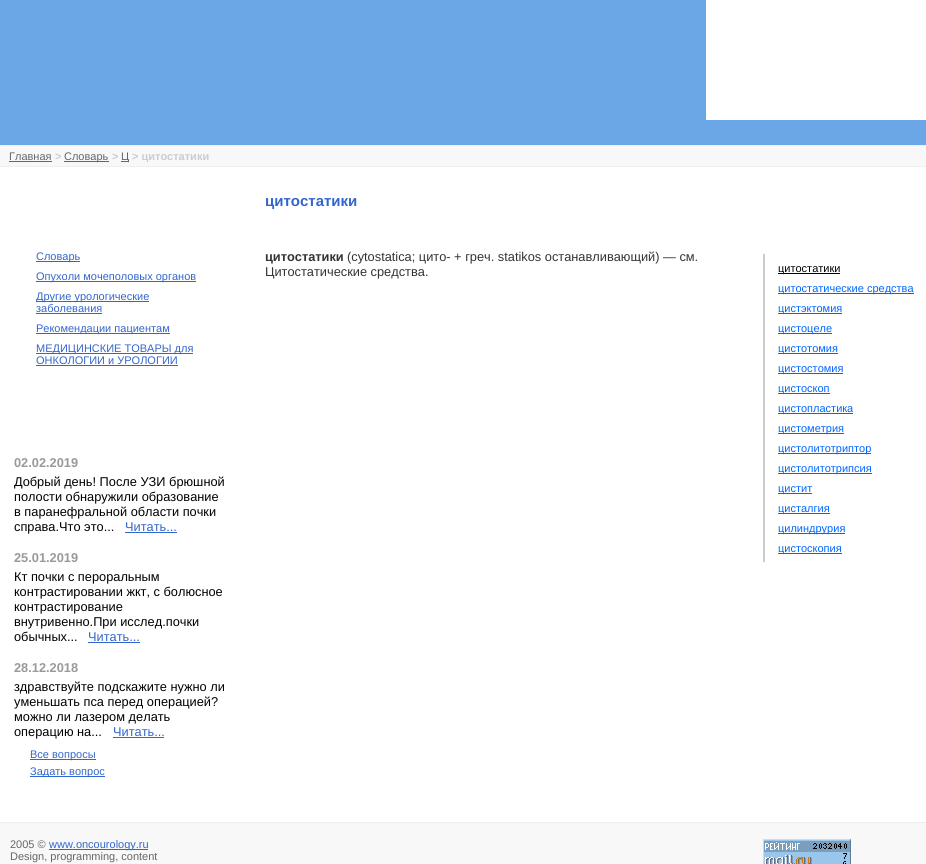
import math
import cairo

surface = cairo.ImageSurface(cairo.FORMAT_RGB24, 926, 864)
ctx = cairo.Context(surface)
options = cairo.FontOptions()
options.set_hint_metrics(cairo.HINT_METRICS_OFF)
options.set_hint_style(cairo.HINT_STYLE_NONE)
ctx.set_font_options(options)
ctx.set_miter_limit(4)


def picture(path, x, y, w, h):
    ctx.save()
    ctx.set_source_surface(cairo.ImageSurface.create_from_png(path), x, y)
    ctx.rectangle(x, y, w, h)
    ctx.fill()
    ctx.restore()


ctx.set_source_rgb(1, 1, 1)
ctx.paint()
ctx.set_source_rgb(0.42, 0.651, 0.906)
ctx.rectangle(0, 0, 926, 145)
ctx.fill()
ctx.set_source_rgb(1, 1, 1)
ctx.rectangle(706, 0, 220, 120)
ctx.fill()
ctx.set_source_rgb(0.969, 0.969, 0.969)
ctx.rectangle(0, 146, 926, 20)
ctx.fill()
ctx.set_source_rgb(0.937, 0.937, 0.937)
ctx.rectangle(0, 145, 926, 1)
ctx.fill()
ctx.select_font_face("Liberation Sans")
ctx.set_font_size(11)
ctx.set_source_rgb(0.4, 0.4, 0.4)
ctx.move_to(9, 160)
ctx.show_text("Главная")
ctx.rectangle(9, 161, 43, 1)
ctx.fill()
ctx.select_font_face("Liberation Sans", cairo.FONT_SLANT_NORMAL, cairo.FONT_WEIGHT_BOLD)
ctx.set_source_rgb(0.8, 0.8, 0.8)
ctx.move_to(55, 160)
ctx.show_text(">")
ctx.set_source_rgb(0.4, 0.4, 0.4)
ctx.rectangle(64, 161, 45, 1)
ctx.fill()
ctx.select_font_face("Liberation Sans")
ctx.move_to(64, 160)
ctx.show_text("Словарь")
ctx.select_font_face("Liberation Sans", cairo.FONT_SLANT_NORMAL, cairo.FONT_WEIGHT_BOLD)
ctx.set_source_rgb(0.8, 0.8, 0.8)
ctx.move_to(112, 160)
ctx.show_text(">")
ctx.set_source_rgb(0.4, 0.4, 0.4)
ctx.rectangle(121, 161, 8, 1)
ctx.fill()
ctx.select_font_face("Liberation Sans")
ctx.move_to(121, 160)
ctx.show_text("Ц")
ctx.select_font_face("Liberation Sans", cairo.FONT_SLANT_NORMAL, cairo.FONT_WEIGHT_BOLD)
ctx.set_source_rgb(0.8, 0.8, 0.8)
ctx.move_to(132, 160)
ctx.show_text("> цитостатики")
ctx.set_source_rgb(0.937, 0.937, 0.937)
ctx.rectangle(0, 166, 926, 1)
ctx.fill()
ctx.set_source_rgb(0.2, 0.4, 0.8)
ctx.rectangle(36, 261, 44, 1)
ctx.fill()
ctx.select_font_face("Liberation Sans")
ctx.move_to(36, 260)
ctx.show_text("Словарь")
ctx.rectangle(36, 281, 160, 1)
ctx.fill()
ctx.move_to(36, 280)
ctx.show_text("Опухоли мочеполовых органов")
ctx.rectangle(36, 301, 113, 1)
ctx.fill()
ctx.move_to(36, 300)
ctx.show_text("Другие урологические")
ctx.move_to(36, 312)
ctx.show_text("заболевания")
ctx.rectangle(36, 313, 66, 1)
ctx.fill()
ctx.rectangle(36, 333, 134, 1)
ctx.fill()
ctx.move_to(36, 332)
ctx.show_text("Рекомендации пациентам")
ctx.rectangle(36, 353, 157, 1)
ctx.fill()
ctx.move_to(36, 352)
ctx.show_text("МЕДИЦИНСКИЕ ТОВАРЫ для")
ctx.move_to(36, 364)
ctx.show_text("ОНКОЛОГИИ и УРОЛОГИИ")
ctx.rectangle(36, 365, 142, 1)
ctx.fill()
ctx.select_font_face("Liberation Sans", cairo.FONT_SLANT_NORMAL, cairo.FONT_WEIGHT_BOLD)
ctx.set_font_size(12.8)
ctx.set_source_rgb(0.6, 0.6, 0.6)
ctx.move_to(14, 467)
ctx.show_text("02.02.2019")
ctx.select_font_face("Liberation Sans")
ctx.set_source_rgb(0, 0, 0)
ctx.move_to(14, 486)
ctx.show_text("Добрый день! После УЗИ брюшной")
ctx.move_to(14, 501)
ctx.show_text("полости обнаружили образование")
ctx.move_to(14, 516)
ctx.show_text("в паранефральной области почки")
ctx.move_to(14, 531)
ctx.show_text("справа.Что это...")
ctx.set_source_rgb(0.2, 0.4, 0.8)
ctx.move_to(125, 531)
ctx.show_text("Читать...")
ctx.rectangle(125, 532, 52, 1)
ctx.fill()
ctx.select_font_face("Liberation Sans", cairo.FONT_SLANT_NORMAL, cairo.FONT_WEIGHT_BOLD)
ctx.set_source_rgb(0.6, 0.6, 0.6)
ctx.move_to(14, 562)
ctx.show_text("25.01.2019")
ctx.select_font_face("Liberation Sans")
ctx.set_source_rgb(0, 0, 0)
ctx.move_to(14, 581)
ctx.show_text("Кт почки с пероральным")
ctx.move_to(14, 596)
ctx.show_text("контрастировании жкт, с болюсное")
ctx.move_to(14, 611)
ctx.show_text("контрастирование")
ctx.move_to(14, 626)
ctx.show_text("внутривенно.При исслед.почки")
ctx.move_to(14, 641)
ctx.show_text("обычных...")
ctx.set_source_rgb(0.2, 0.4, 0.8)
ctx.move_to(88, 641)
ctx.show_text("Читать...")
ctx.rectangle(88, 642, 52, 1)
ctx.fill()
ctx.select_font_face("Liberation Sans", cairo.FONT_SLANT_NORMAL, cairo.FONT_WEIGHT_BOLD)
ctx.set_source_rgb(0.6, 0.6, 0.6)
ctx.move_to(14, 672)
ctx.show_text("28.12.2018")
ctx.select_font_face("Liberation Sans")
ctx.set_source_rgb(0, 0, 0)
ctx.move_to(14, 691)
ctx.show_text("здравствуйте подскажите нужно ли")
ctx.move_to(14, 706)
ctx.show_text("уменьшать пса перед операцией?")
ctx.move_to(14, 721)
ctx.show_text("можно ли лазером делать")
ctx.move_to(14, 736)
ctx.show_text("операцию на...")
ctx.set_source_rgb(0.2, 0.4, 0.8)
ctx.move_to(113, 736)
ctx.show_text("Читать...")
ctx.rectangle(113, 737, 51, 1)
ctx.fill()
ctx.rectangle(30, 759, 66, 1)
ctx.fill()
ctx.set_font_size(11)
ctx.move_to(30, 758)
ctx.show_text("Все вопросы")
ctx.rectangle(30, 776, 75, 1)
ctx.fill()
ctx.move_to(30, 775)
ctx.show_text("Задать вопрос")
ctx.select_font_face("Liberation Sans", cairo.FONT_SLANT_NORMAL, cairo.FONT_WEIGHT_BOLD)
ctx.set_font_size(15)
ctx.move_to(265, 206)
ctx.show_text("цитостатики")
ctx.set_font_size(12.8)
ctx.set_source_rgb(0.2, 0.2, 0.2)
ctx.move_to(265, 261)
ctx.show_text("цитостатики")
ctx.select_font_face("Liberation Sans")
ctx.move_to(347, 261)
ctx.show_text("(cytostatica; цито- + греч. statikos останавливающий) — см.")
ctx.move_to(265, 276)
ctx.show_text("Цитостатические средства.")
ctx.set_source_rgb(0.8, 0.8, 0.8)
ctx.rectangle(763, 254, 2, 308)
ctx.fill()
ctx.set_source_rgb(0, 0, 0)
ctx.rectangle(778, 273, 62, 1)
ctx.fill()
ctx.set_font_size(11)
ctx.move_to(778, 272)
ctx.show_text("цитостатики")
ctx.set_source_rgb(0, 0.4, 1)
ctx.rectangle(778, 293, 136, 1)
ctx.fill()
ctx.move_to(778, 292)
ctx.show_text("цитостатические средства")
ctx.rectangle(778, 313, 64, 1)
ctx.fill()
ctx.move_to(778, 312)
ctx.show_text("цистэктомия")
ctx.rectangle(778, 333, 54, 1)
ctx.fill()
ctx.move_to(778, 332)
ctx.show_text("цистоцеле")
ctx.rectangle(778, 353, 60, 1)
ctx.fill()
ctx.move_to(778, 352)
ctx.show_text("цистотомия")
ctx.rectangle(778, 373, 65, 1)
ctx.fill()
ctx.move_to(778, 372)
ctx.show_text("цистостомия")
ctx.rectangle(778, 393, 52, 1)
ctx.fill()
ctx.move_to(778, 392)
ctx.show_text("цистоскоп")
ctx.rectangle(778, 413, 75, 1)
ctx.fill()
ctx.move_to(778, 412)
ctx.show_text("цистопластика")
ctx.rectangle(778, 433, 66, 1)
ctx.fill()
ctx.move_to(778, 432)
ctx.show_text("цистометрия")
ctx.rectangle(778, 453, 93, 1)
ctx.fill()
ctx.move_to(778, 452)
ctx.show_text("цистолитотриптор")
ctx.rectangle(778, 473, 94, 1)
ctx.fill()
ctx.move_to(778, 472)
ctx.show_text("цистолитотрипсия")
ctx.rectangle(778, 493, 34, 1)
ctx.fill()
ctx.move_to(778, 492)
ctx.show_text("цистит")
ctx.rectangle(778, 513, 52, 1)
ctx.fill()
ctx.move_to(778, 512)
ctx.show_text("цисталгия")
ctx.rectangle(778, 533, 67, 1)
ctx.fill()
ctx.move_to(778, 532)
ctx.show_text("цилиндрурия")
ctx.rectangle(778, 553, 64, 1)
ctx.fill()
ctx.move_to(778, 552)
ctx.show_text("цистоскопия")
ctx.set_source_rgb(0.937, 0.937, 0.937)
ctx.rectangle(0, 822, 926, 1)
ctx.fill()
ctx.set_source_rgb(0.969, 0.969, 0.969)
ctx.rectangle(0, 823, 926, 41)
ctx.fill()
ctx.set_source_rgb(0.4, 0.4, 0.4)
ctx.move_to(10, 848)
ctx.show_text("2005 ©")
ctx.set_source_rgb(0.2, 0.4, 0.8)
ctx.rectangle(49, 849, 99, 1)
ctx.fill()
ctx.move_to(49, 848)
ctx.show_text("www.oncourology.ru")
ctx.set_source_rgb(0.4, 0.4, 0.4)
ctx.move_to(10, 860)
ctx.show_text("Design, programming, content")
picture("img1.png", 763, 839, 88, 25)
surface.write_to_png("page.png")
